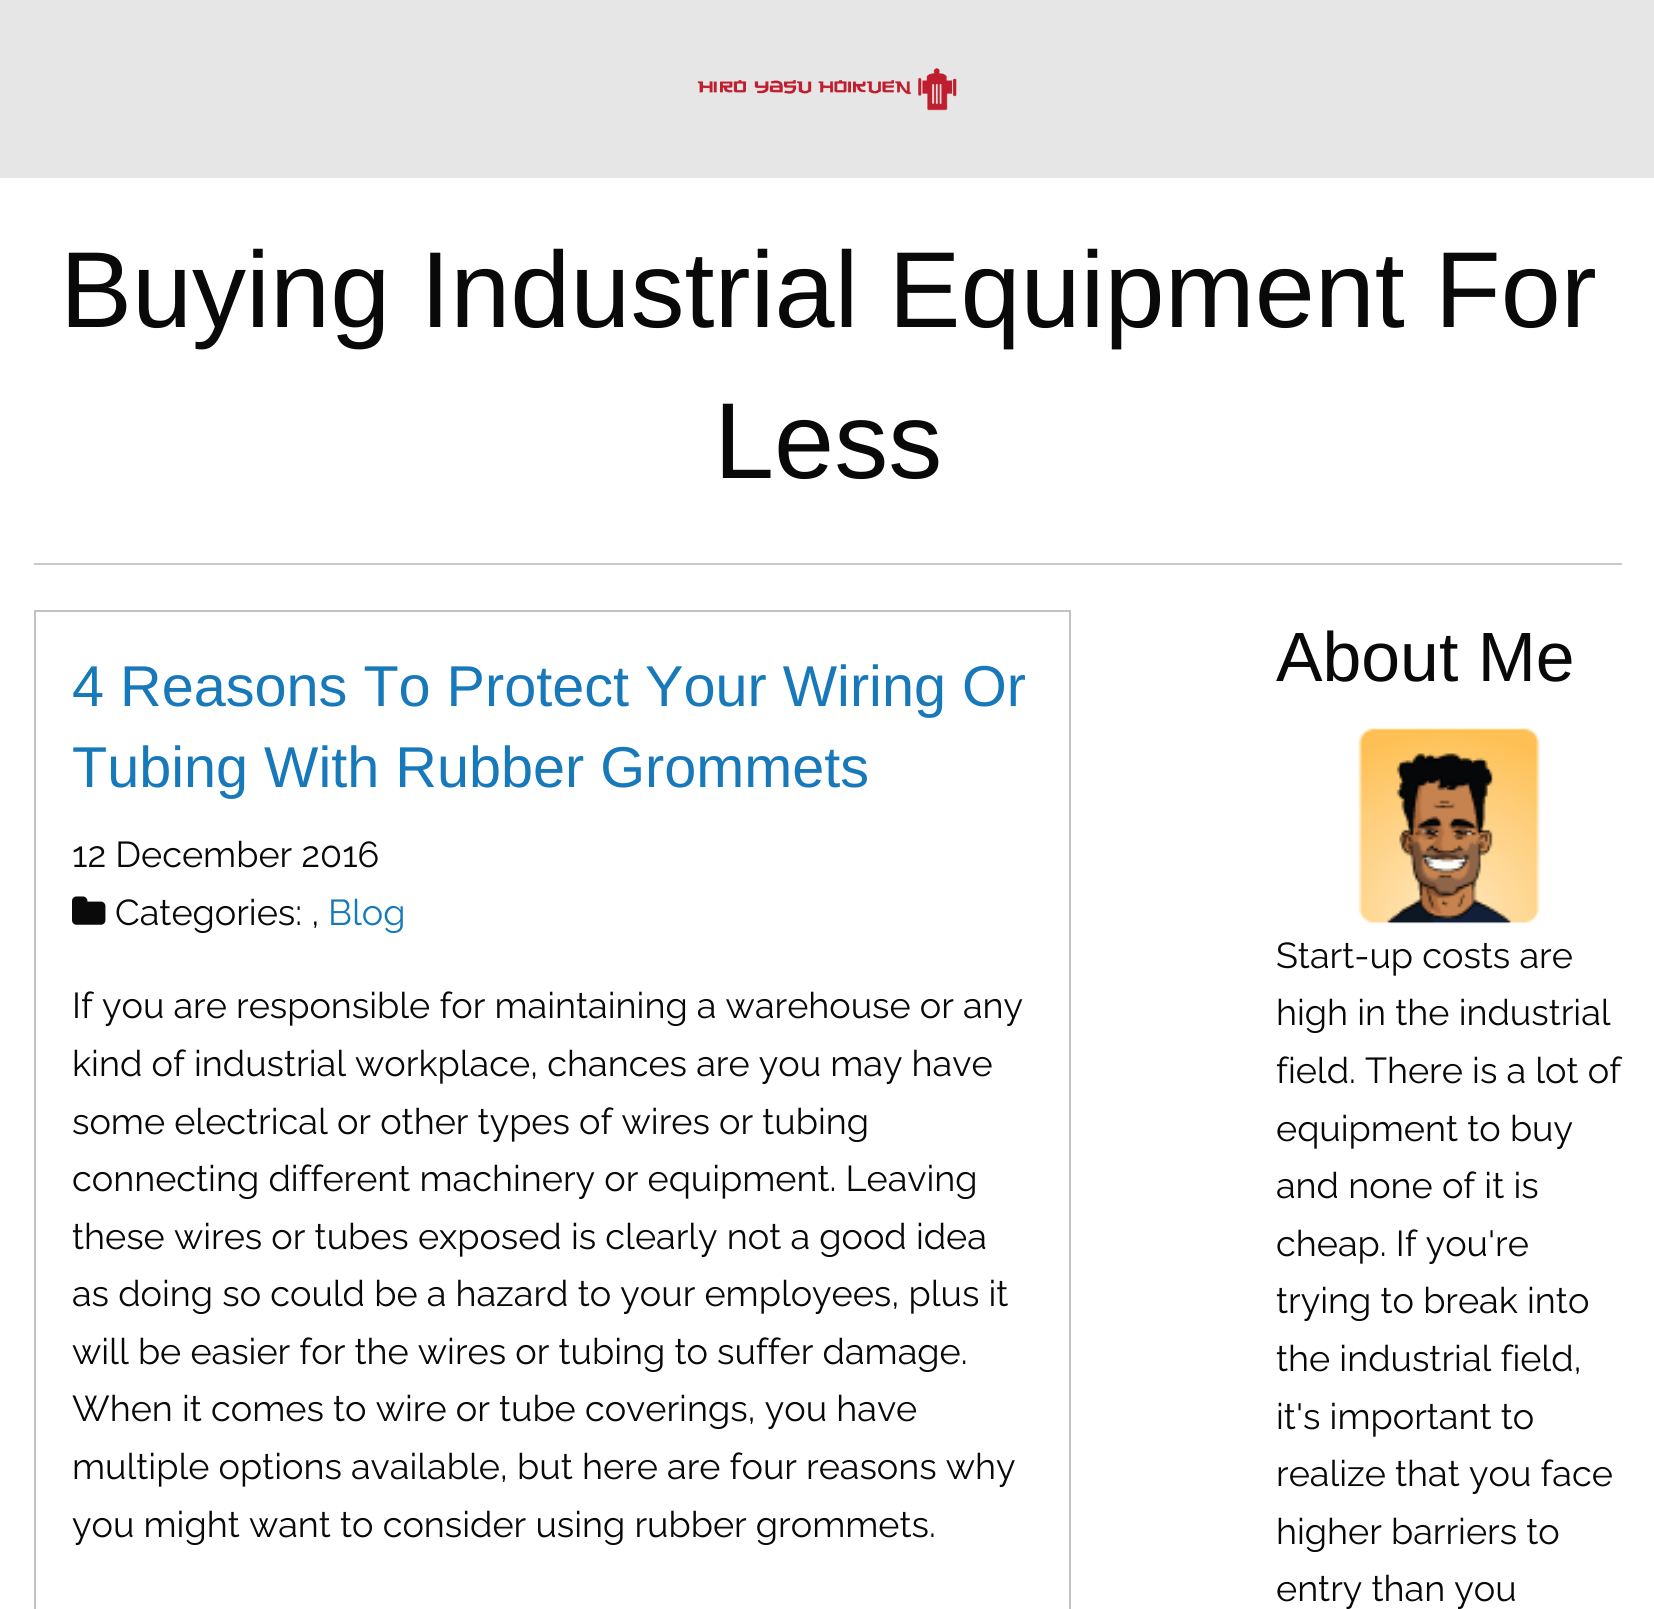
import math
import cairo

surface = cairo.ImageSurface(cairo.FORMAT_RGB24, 1654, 1609)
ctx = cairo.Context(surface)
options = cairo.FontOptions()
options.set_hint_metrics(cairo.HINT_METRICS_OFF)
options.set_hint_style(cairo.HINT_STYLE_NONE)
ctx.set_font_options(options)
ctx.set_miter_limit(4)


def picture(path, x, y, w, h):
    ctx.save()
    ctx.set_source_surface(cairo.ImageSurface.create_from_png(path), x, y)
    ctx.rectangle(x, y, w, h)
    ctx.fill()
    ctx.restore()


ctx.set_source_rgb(1, 1, 1)
ctx.paint()
ctx.set_source_rgb(0.902, 0.902, 0.902)
ctx.rectangle(0, 0, 1654, 178)
ctx.fill()
picture("img1.png", 697, 68, 260, 43)
ctx.select_font_face("Liberation Sans")
ctx.set_font_size(108)
ctx.set_source_rgb(0.039, 0.039, 0.039)
ctx.move_to(60, 327)
ctx.show_text("Buying Industrial Equipment For")
ctx.move_to(714, 478)
ctx.show_text("Less")
ctx.set_source_rgb(0.792, 0.792, 0.792)
ctx.rectangle(34, 563, 1588, 2)
ctx.fill()
ctx.rectangle(35, 611, 1035, 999)
ctx.set_source_rgb(0.761, 0.761, 0.761)
ctx.stroke()
ctx.set_font_size(57.6)
ctx.set_source_rgb(0.09, 0.475, 0.729)
ctx.move_to(72, 706)
ctx.show_text("4 Reasons To Protect Your Wiring Or")
ctx.move_to(72, 787)
ctx.show_text("Tubing With Rubber Grommets")
ctx.select_font_face("Raleway Thin")
ctx.set_font_size(36)
ctx.set_source_rgb(0.039, 0.039, 0.039)
ctx.move_to(72, 867)
ctx.show_text("12 December 2016")
picture("img2.png", 72, 896, 34, 29)
ctx.move_to(115, 925)
ctx.show_text("Categories: ,")
ctx.set_source_rgb(0.09, 0.475, 0.729)
ctx.move_to(328, 925)
ctx.show_text("Blog")
ctx.set_source_rgb(0.039, 0.039, 0.039)
ctx.move_to(72, 1018)
ctx.show_text("If you are responsible for maintaining a warehouse or any")
ctx.move_to(72, 1076)
ctx.show_text("kind of industrial workplace, chances are you may have")
ctx.move_to(72, 1134)
ctx.show_text("some electrical or other types of wires or tubing")
ctx.move_to(72, 1191)
ctx.show_text("connecting different machinery or equipment. Leaving")
ctx.move_to(72, 1249)
ctx.show_text("these wires or tubes exposed is clearly not a good idea")
ctx.move_to(72, 1306)
ctx.show_text("as doing so could be a hazard to your employees, plus it")
ctx.move_to(72, 1364)
ctx.show_text("will be easier for the wires or tubing to suffer damage.")
ctx.move_to(72, 1421)
ctx.show_text("When it comes to wire or tube coverings, you have")
ctx.move_to(72, 1479)
ctx.show_text("multiple options available, but here are four reasons why")
ctx.move_to(72, 1537)
ctx.show_text("you might want to consider using rubber grommets.")
ctx.select_font_face("Liberation Sans")
ctx.set_font_size(69.75)
ctx.move_to(1276, 681)
ctx.show_text("About Me")
picture("img3.png", 1358, 728, 182, 196)
ctx.select_font_face("Raleway Thin")
ctx.set_font_size(36)
ctx.move_to(1276, 968)
ctx.show_text("Start-up costs are")
ctx.move_to(1276, 1025)
ctx.show_text("high in the industrial")
ctx.move_to(1276, 1083)
ctx.show_text("field. There is a lot of")
ctx.move_to(1276, 1141)
ctx.show_text("equipment to buy")
ctx.move_to(1276, 1198)
ctx.show_text("and none of it is")
ctx.move_to(1276, 1256)
ctx.show_text("cheap. If you're")
ctx.move_to(1276, 1313)
ctx.show_text("trying to break into")
ctx.move_to(1276, 1371)
ctx.show_text("the industrial field,")
ctx.move_to(1276, 1429)
ctx.show_text("it's important to")
ctx.move_to(1276, 1486)
ctx.show_text("realize that you face")
ctx.move_to(1276, 1544)
ctx.show_text("higher barriers to")
ctx.move_to(1276, 1601)
ctx.show_text("entry than you")
surface.write_to_png("page.png")
